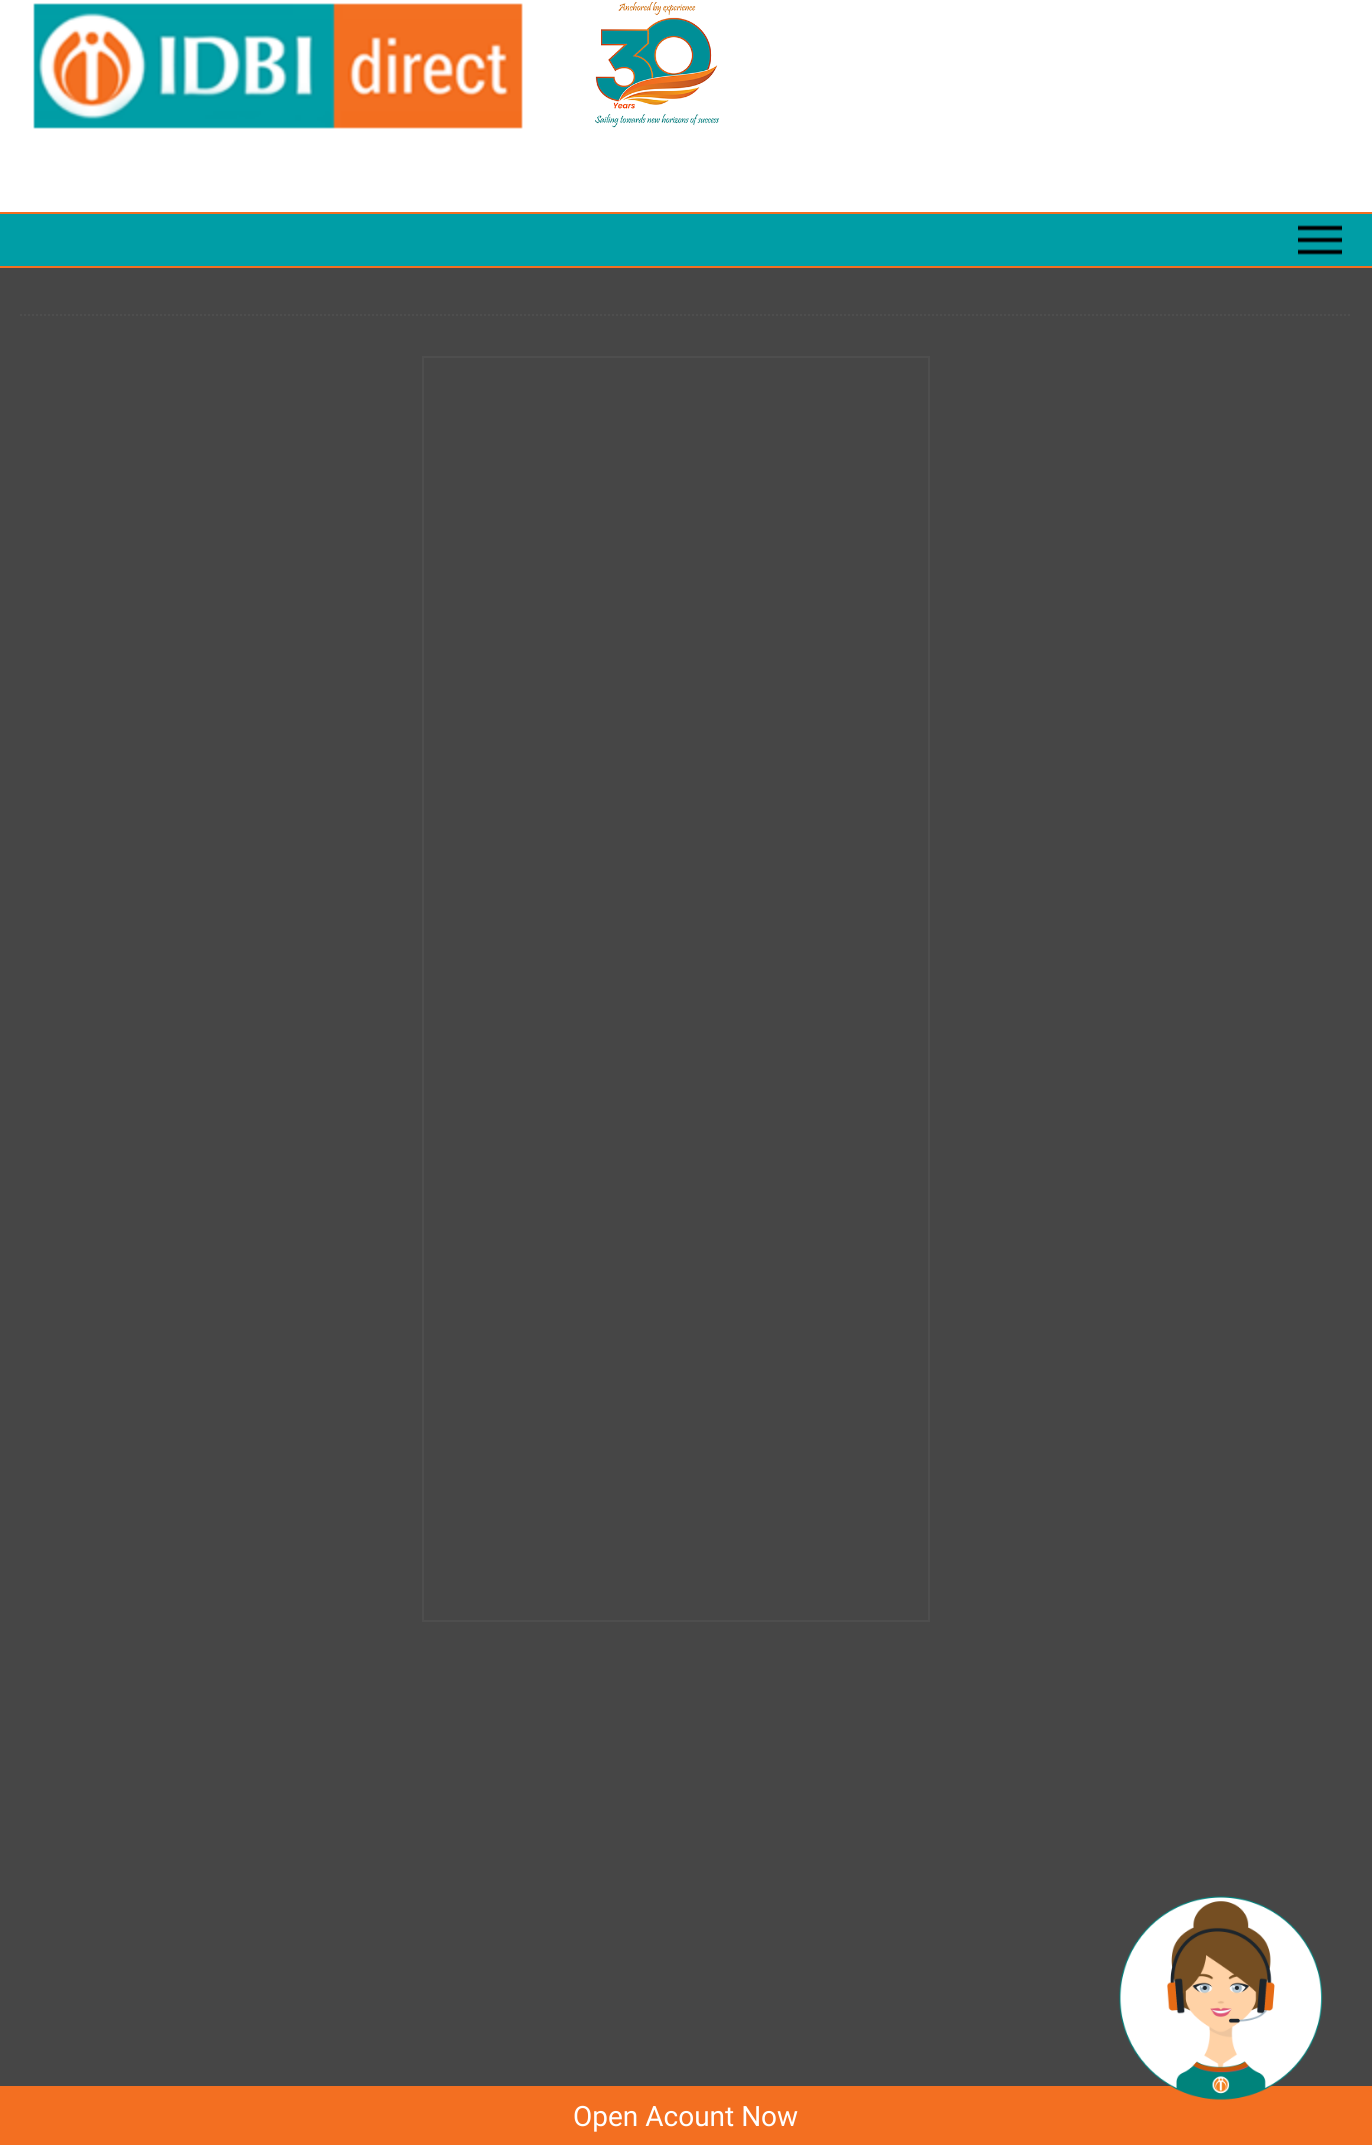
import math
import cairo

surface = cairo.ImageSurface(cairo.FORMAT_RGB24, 1372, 2145)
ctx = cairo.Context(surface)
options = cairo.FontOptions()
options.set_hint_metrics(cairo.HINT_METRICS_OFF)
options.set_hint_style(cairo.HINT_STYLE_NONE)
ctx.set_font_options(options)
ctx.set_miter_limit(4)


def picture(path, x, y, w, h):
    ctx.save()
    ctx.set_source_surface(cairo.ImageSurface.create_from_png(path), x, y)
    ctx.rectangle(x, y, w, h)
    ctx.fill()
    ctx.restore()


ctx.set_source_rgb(0.275, 0.275, 0.275)
ctx.paint()
ctx.set_source_rgb(0.953, 0.435, 0.129)
ctx.rectangle(0, 2086, 1372, 59)
ctx.fill()
picture("img1.png", 1119, 1896, 204, 204)
ctx.new_path()
ctx.move_to(20, 315)
ctx.line_to(1352, 315)
ctx.set_source_rgb(0.306, 0.306, 0.306)
ctx.set_dash([2, 2])
ctx.stroke()
ctx.rectangle(423, 357, 506, 1264)
ctx.set_dash([])
ctx.stroke()
ctx.set_source_rgb(1, 1, 1)
ctx.rectangle(0, 0, 1372, 212)
ctx.fill()
picture("img2.png", 33, 3, 490, 126)
picture("img3.png", 595, 2, 125, 126)
ctx.set_source_rgb(0, 0.62, 0.651)
ctx.rectangle(0, 214, 1372, 52)
ctx.fill()
ctx.set_source_rgb(0.953, 0.435, 0.129)
ctx.rectangle(0, 212, 1372, 2)
ctx.fill()
ctx.rectangle(0, 266, 1372, 2)
ctx.fill()
picture("img4.png", 1298, 225, 44, 30)
ctx.select_font_face("Roboto")
ctx.set_font_size(28)
ctx.set_source_rgb(1, 1, 1)
ctx.move_to(573, 2126)
ctx.show_text("Open Acount Now")
surface.write_to_png("page.png")
